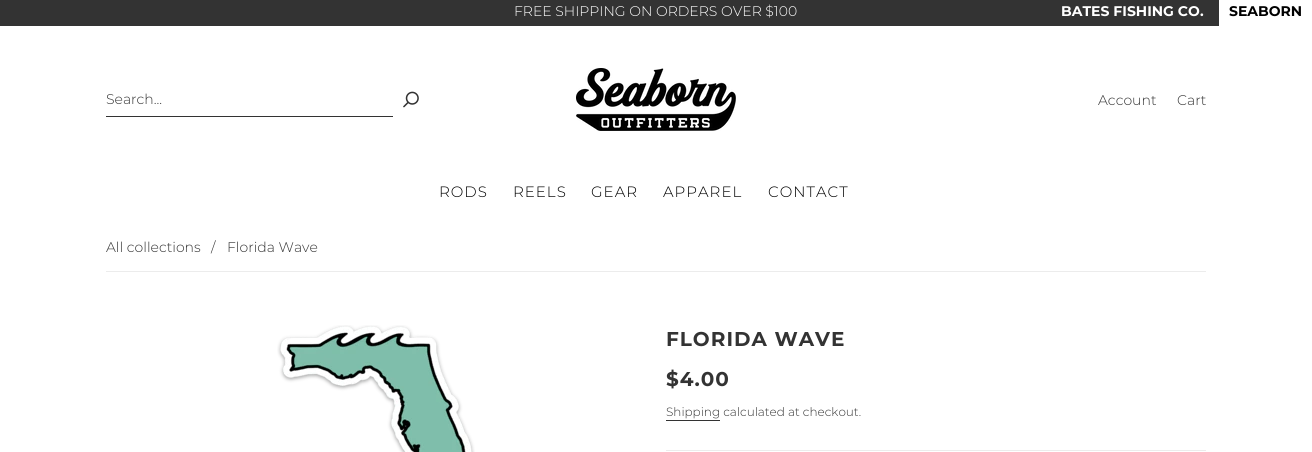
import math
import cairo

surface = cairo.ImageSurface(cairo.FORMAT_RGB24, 1312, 452)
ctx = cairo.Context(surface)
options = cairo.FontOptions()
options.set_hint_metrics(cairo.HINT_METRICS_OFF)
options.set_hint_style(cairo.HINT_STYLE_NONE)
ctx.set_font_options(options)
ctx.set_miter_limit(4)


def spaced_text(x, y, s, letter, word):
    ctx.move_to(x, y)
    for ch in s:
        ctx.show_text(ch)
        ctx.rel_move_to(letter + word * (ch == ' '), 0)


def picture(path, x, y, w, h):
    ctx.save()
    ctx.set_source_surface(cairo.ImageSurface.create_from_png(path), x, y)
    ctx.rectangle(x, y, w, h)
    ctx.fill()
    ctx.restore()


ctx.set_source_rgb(1, 1, 1)
ctx.paint()
ctx.set_source_rgb(0.2, 0.2, 0.2)
ctx.rectangle(0, 0, 1219, 26)
ctx.fill()
ctx.select_font_face("Montserrat Light")
ctx.set_font_size(14)
ctx.set_source_rgb(1, 1, 1)
ctx.move_to(514, 16)
ctx.show_text("FREE SHIPPING ON ORDERS OVER $100")
ctx.select_font_face("Montserrat", cairo.FONT_SLANT_NORMAL, cairo.FONT_WEIGHT_BOLD)
ctx.move_to(1061, 16)
ctx.show_text("BATES FISHING CO.")
ctx.set_source_rgb(0, 0, 0)
ctx.move_to(1229, 16)
ctx.show_text("SEABORN")
ctx.set_source_rgb(0.2, 0.2, 0.2)
ctx.rectangle(106, 116, 287, 1)
ctx.fill()
ctx.select_font_face("Montserrat Light")
ctx.move_to(106, 104)
ctx.show_text("Search...")
picture("img1.png", 403, 91, 16, 17)
picture("img2.png", 576, 68, 160, 63)
ctx.move_to(1098, 105)
ctx.show_text("Account")
ctx.move_to(1177, 105)
ctx.show_text("Cart")
ctx.set_font_size(15)
ctx.set_source_rgb(0, 0, 0)
spaced_text(439, 197, "RODS", 1, 0)
spaced_text(513, 197, "REELS", 1, 0)
spaced_text(591, 197, "GEAR", 1, 0)
spaced_text(663, 197, "APPAREL", 1, 0)
spaced_text(768, 197, "CONTACT", 1, 0)
ctx.set_source_rgb(0.922, 0.922, 0.922)
ctx.rectangle(106, 271, 1100, 1)
ctx.fill()
ctx.set_font_size(14)
ctx.set_source_rgb(0.2, 0.2, 0.2)
ctx.move_to(106, 252)
ctx.show_text("All collections")
ctx.move_to(211, 252)
ctx.show_text("/")
ctx.move_to(227, 252)
ctx.show_text("Florida Wave")
picture("img3.png", 277, 325, 198, 127)
ctx.set_source_rgb(0.922, 0.922, 0.922)
ctx.rectangle(666, 450, 540, 1)
ctx.fill()
ctx.select_font_face("Montserrat", cairo.FONT_SLANT_NORMAL, cairo.FONT_WEIGHT_BOLD)
ctx.set_font_size(20)
ctx.set_source_rgb(0.2, 0.2, 0.2)
spaced_text(666, 346, "FLORIDA WAVE", 1, 0)
spaced_text(666, 386, "$4.00", 1, 0)
ctx.select_font_face("Montserrat Light")
ctx.set_font_size(12)
ctx.move_to(666, 416)
ctx.show_text("Shipping calculated at checkout.")
ctx.rectangle(666, 420, 54, 1)
ctx.fill()
surface.write_to_png("page.png")
